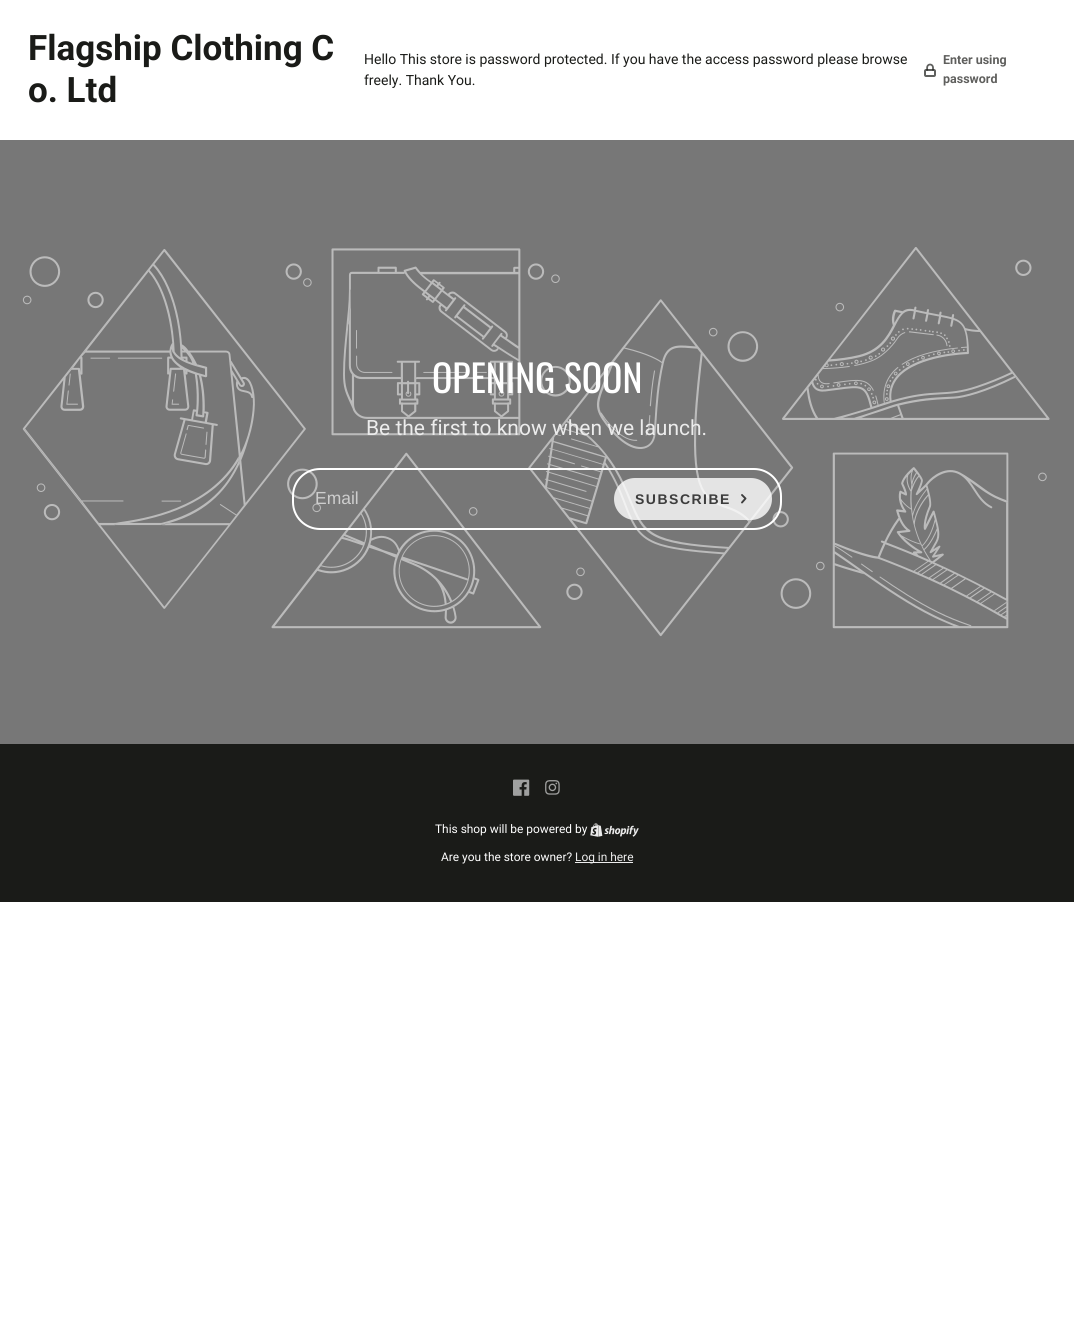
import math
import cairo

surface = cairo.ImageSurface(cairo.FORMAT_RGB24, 1074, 1342)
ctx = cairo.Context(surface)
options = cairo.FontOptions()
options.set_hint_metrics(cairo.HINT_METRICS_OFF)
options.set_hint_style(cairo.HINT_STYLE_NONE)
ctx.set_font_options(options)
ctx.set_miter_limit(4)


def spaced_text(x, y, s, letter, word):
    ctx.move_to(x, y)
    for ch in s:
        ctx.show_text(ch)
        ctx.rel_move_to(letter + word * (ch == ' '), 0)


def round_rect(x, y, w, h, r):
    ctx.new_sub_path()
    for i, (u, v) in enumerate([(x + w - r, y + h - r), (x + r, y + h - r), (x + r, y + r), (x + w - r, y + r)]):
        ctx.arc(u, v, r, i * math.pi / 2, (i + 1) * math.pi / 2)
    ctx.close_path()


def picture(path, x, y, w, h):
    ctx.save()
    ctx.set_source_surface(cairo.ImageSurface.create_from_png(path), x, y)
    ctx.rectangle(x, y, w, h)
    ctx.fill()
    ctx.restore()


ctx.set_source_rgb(1, 1, 1)
ctx.paint()
ctx.select_font_face("Roboto", cairo.FONT_SLANT_NORMAL, cairo.FONT_WEIGHT_BOLD)
ctx.set_font_size(35)
ctx.set_source_rgb(0.102, 0.106, 0.094)
ctx.move_to(28, 60)
ctx.show_text("Flagship Clothing C")
ctx.move_to(28, 102)
ctx.show_text("o. Ltd")
ctx.select_font_face("Roboto")
ctx.set_font_size(14)
ctx.move_to(364, 64)
ctx.show_text("Hello This store is password protected. If you have the access password please browse")
ctx.move_to(364, 85)
ctx.show_text("freely. Thank You.")
ctx.select_font_face("Roboto", cairo.FONT_SLANT_NORMAL, cairo.FONT_WEIGHT_BOLD)
ctx.set_font_size(12.5)
ctx.set_source_rgb(0.373, 0.373, 0.365)
ctx.move_to(943, 64)
ctx.show_text("Enter using")
picture("img1.png", 924, 63, 12, 14)
ctx.move_to(943, 83)
ctx.show_text("password")
ctx.set_source_rgb(0.467, 0.467, 0.467)
ctx.rectangle(0, 140, 1074, 604)
ctx.fill()
picture("img2.png", 22, 247, 1028, 390)
ctx.select_font_face("Oswald")
ctx.set_font_size(37.75)
ctx.set_source_rgb(1, 1, 1)
ctx.move_to(432, 393)
ctx.show_text("OPENING SOON")
ctx.select_font_face("Roboto")
ctx.set_font_size(21)
ctx.set_source_rgb(0.922, 0.922, 0.922)
ctx.move_to(366, 435)
ctx.show_text("Be the first to know when we launch.")
round_rect(293, 469, 488, 60, 27)
ctx.set_source_rgb(1, 1, 1)
ctx.stroke()
ctx.select_font_face("Liberation Sans")
ctx.set_font_size(17.5)
ctx.set_source_rgb(0.808, 0.808, 0.808)
ctx.move_to(315, 504)
ctx.show_text("Email")
ctx.set_source_rgba(1, 1, 1, 0.8)
round_rect(614, 478, 158, 42, 21)
ctx.fill()
ctx.select_font_face("Liberation Sans", cairo.FONT_SLANT_NORMAL, cairo.FONT_WEIGHT_BOLD)
ctx.set_font_size(14)
ctx.set_source_rgb(0.239, 0.239, 0.239)
spaced_text(635, 504, "SUBSCRIBE", 1.5, 0)
ctx.new_path()
ctx.move_to(742, 502.5)
ctx.line_to(745.5, 498.5)
ctx.line_to(742, 495)
ctx.set_line_width(1.9)
ctx.set_line_cap(cairo.LINE_CAP_ROUND)
ctx.set_line_join(cairo.LINE_JOIN_ROUND)
ctx.stroke()
ctx.set_source_rgb(0.102, 0.106, 0.094)
ctx.rectangle(0, 744, 1074, 158)
ctx.fill()
picture("img3.png", 513, 779, 17, 17)
picture("img4.png", 545, 780, 15, 15)
ctx.select_font_face("Roboto")
ctx.set_font_size(11.9)
ctx.set_source_rgb(1, 1, 1)
ctx.move_to(435, 833)
ctx.show_text("This shop will be powered by")
picture("img5.png", 590, 823, 49, 14)
ctx.move_to(441, 861)
ctx.show_text("Are you the store owner?")
ctx.set_source_rgb(0.922, 0.922, 0.922)
ctx.rectangle(575, 862, 58, 1)
ctx.fill()
ctx.move_to(575, 861)
ctx.show_text("Log in here")
surface.write_to_png("page.png")
